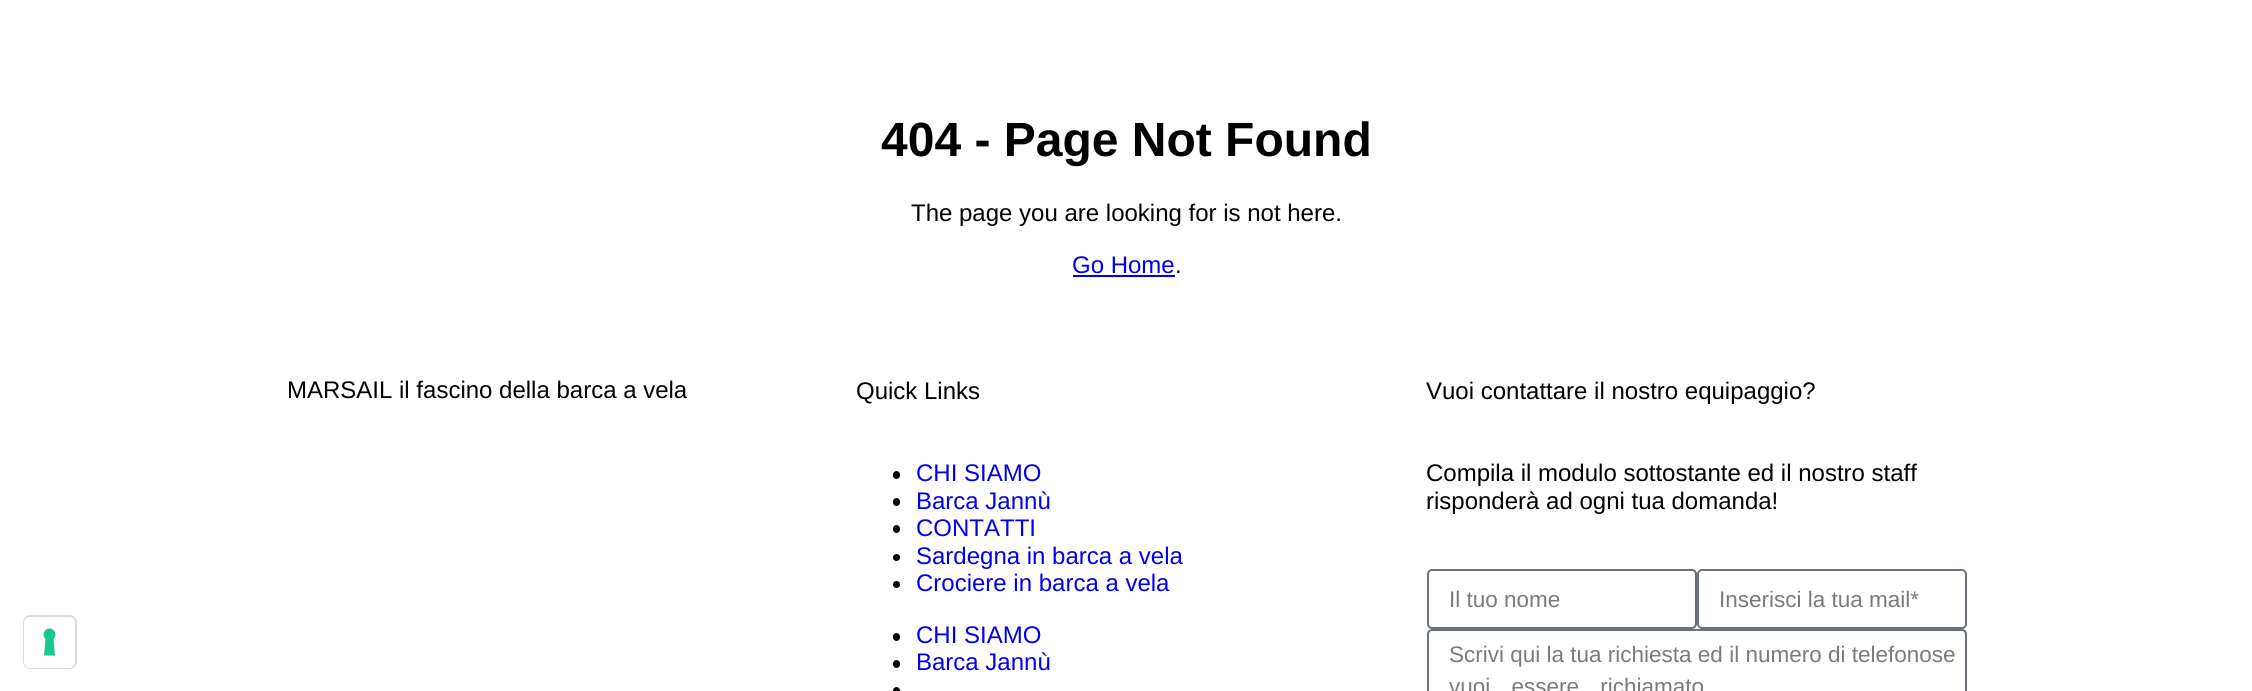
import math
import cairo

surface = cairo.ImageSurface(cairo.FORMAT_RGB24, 2252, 691)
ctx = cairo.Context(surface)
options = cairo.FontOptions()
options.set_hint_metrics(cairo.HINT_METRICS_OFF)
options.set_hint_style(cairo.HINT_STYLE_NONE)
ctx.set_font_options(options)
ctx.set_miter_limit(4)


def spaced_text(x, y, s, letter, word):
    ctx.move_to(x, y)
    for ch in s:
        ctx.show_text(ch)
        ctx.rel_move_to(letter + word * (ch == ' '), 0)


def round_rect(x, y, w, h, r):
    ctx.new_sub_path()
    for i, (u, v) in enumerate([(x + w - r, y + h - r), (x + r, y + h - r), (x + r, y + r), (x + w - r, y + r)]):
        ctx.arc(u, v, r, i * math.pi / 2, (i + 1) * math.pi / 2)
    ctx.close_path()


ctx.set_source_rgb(1, 1, 1)
ctx.paint()
ctx.select_font_face("Liberation Sans", cairo.FONT_SLANT_NORMAL, cairo.FONT_WEIGHT_BOLD)
ctx.set_font_size(48)
ctx.set_source_rgb(0, 0, 0)
ctx.move_to(881, 156)
ctx.show_text("404 - Page Not Found")
ctx.select_font_face("Liberation Sans")
ctx.set_font_size(24)
ctx.move_to(911, 221)
ctx.show_text("The page you are looking for is not here.")
ctx.set_source_rgb(0, 0, 0.933)
ctx.move_to(1072, 273)
ctx.show_text("Go Home")
ctx.rectangle(1073, 275, 102, 2)
ctx.fill()
ctx.set_source_rgb(0, 0, 0)
ctx.move_to(1175, 273)
ctx.show_text(".")
round_rect(24, 616, 52, 52, 7)
ctx.set_source_rgb(0.851, 0.851, 0.851)
ctx.stroke()
ctx.set_source_rgb(1, 1, 1)
round_rect(24, 617, 51, 51, 6)
ctx.fill()
ctx.set_source_rgb(0.11, 0.776, 0.569)
ctx.set_fill_rule(cairo.FILL_RULE_EVEN_ODD)
ctx.new_path()
ctx.move_to(49.5, 628.5)
ctx.curve_to(55, 628.5, 57.5, 635.5, 53.5, 639)
ctx.line_to(55, 655.5)
ctx.line_to(44, 655.5)
ctx.line_to(45.5, 639)
ctx.curve_to(41.5, 635.5, 44, 628.5, 49.5, 628.5)
ctx.close_path()
ctx.fill()
ctx.set_source_rgb(0, 0, 0)
ctx.move_to(287, 398)
ctx.show_text("MARSAIL il fascino della barca a vela")
ctx.move_to(856, 399)
ctx.show_text("Quick Links")
round_rect(893, 471, 7, 8, 3.5)
ctx.fill()
ctx.set_source_rgb(0, 0, 0.933)
ctx.move_to(916, 481)
ctx.show_text("CHI SIAMO")
ctx.set_source_rgb(0, 0, 0)
round_rect(893, 498, 7, 8, 3.5)
ctx.fill()
ctx.set_source_rgb(0, 0, 0.933)
ctx.move_to(916, 509)
ctx.show_text("Barca Jannù")
ctx.set_source_rgb(0, 0, 0)
round_rect(893, 525, 7, 8, 3.5)
ctx.fill()
ctx.set_source_rgb(0, 0, 0.933)
ctx.move_to(916, 536)
ctx.show_text("CONTATTI")
ctx.set_source_rgb(0, 0, 0)
ctx.new_path()
ctx.arc(896.5, 557.5, 3.5, 0, 2 * math.pi)
ctx.fill()
ctx.set_source_rgb(0, 0, 0.933)
ctx.move_to(916, 564)
ctx.show_text("Sardegna in barca a vela")
ctx.set_source_rgb(0, 0, 0)
ctx.new_path()
ctx.arc(896.5, 584.5, 3.5, 0, 2 * math.pi)
ctx.fill()
ctx.set_source_rgb(0, 0, 0.933)
ctx.move_to(916, 591)
ctx.show_text("Crociere in barca a vela")
ctx.set_source_rgb(0, 0, 0)
round_rect(893, 633, 7, 8, 3.5)
ctx.fill()
ctx.set_source_rgb(0, 0, 0.933)
ctx.move_to(916, 643)
ctx.show_text("CHI SIAMO")
ctx.set_source_rgb(0, 0, 0)
round_rect(893, 660, 7, 8, 3.5)
ctx.fill()
ctx.set_source_rgb(0, 0, 0.933)
ctx.move_to(916, 670)
ctx.show_text("Barca Jannù")
ctx.set_source_rgb(0, 0, 0)
round_rect(893, 687, 7, 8, 3.5)
ctx.fill()
ctx.move_to(1426, 399)
ctx.show_text("Vuoi contattare il nostro equipaggio?")
ctx.move_to(1426, 481)
ctx.show_text("Compila il modulo sottostante ed il nostro staff")
ctx.move_to(1426, 509)
ctx.show_text("risponderà ad ogni tua domanda!")
round_rect(1428, 570, 268, 58, 4)
ctx.set_source_rgb(0.412, 0.447, 0.49)
ctx.stroke()
ctx.set_font_size(22.5)
ctx.set_source_rgb(0.475, 0.478, 0.486)
ctx.move_to(1449, 607)
ctx.show_text("Il tuo nome")
round_rect(1698, 570, 268, 58, 4)
ctx.set_source_rgb(0.412, 0.447, 0.49)
ctx.stroke()
ctx.set_source_rgb(0.475, 0.478, 0.486)
ctx.move_to(1719, 607)
ctx.show_text("Inserisci la tua mail*")
round_rect(1428, 630, 538, 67, 4)
ctx.set_source_rgb(0.412, 0.447, 0.49)
ctx.stroke()
ctx.set_source_rgb(0.475, 0.478, 0.486)
ctx.move_to(1449, 662)
ctx.show_text("Scrivi qui la tua richiesta ed il numero di telefonose")
spaced_text(1449, 694, "vuoi essere richiamato", 0, 15)
surface.write_to_png("page.png")
